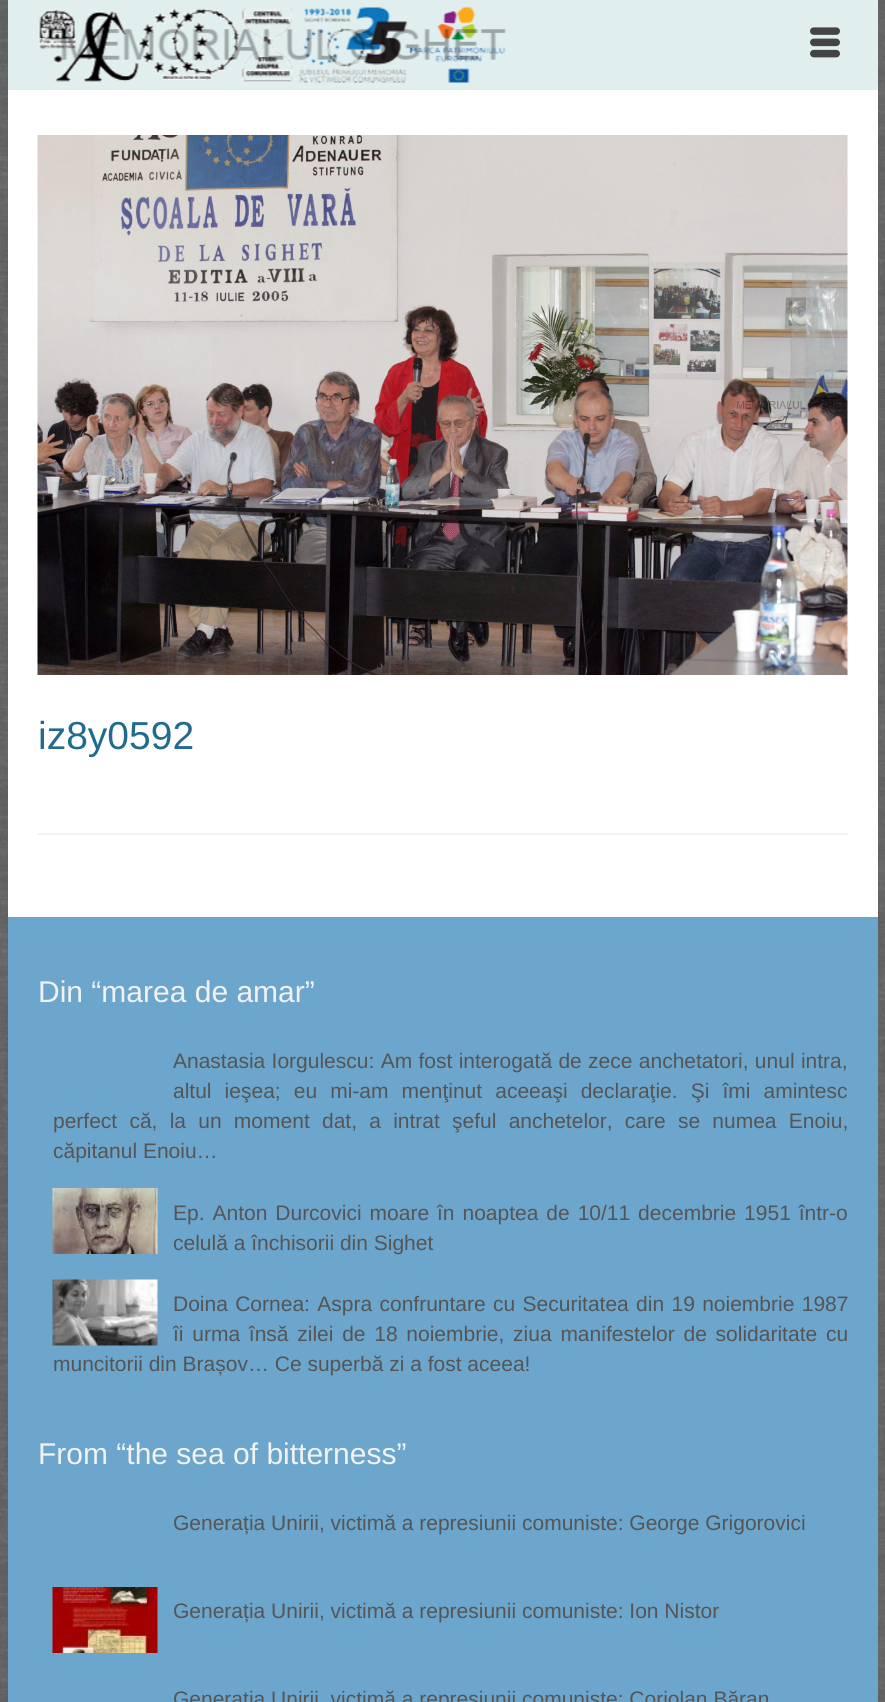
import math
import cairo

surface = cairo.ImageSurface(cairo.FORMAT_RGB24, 885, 1702)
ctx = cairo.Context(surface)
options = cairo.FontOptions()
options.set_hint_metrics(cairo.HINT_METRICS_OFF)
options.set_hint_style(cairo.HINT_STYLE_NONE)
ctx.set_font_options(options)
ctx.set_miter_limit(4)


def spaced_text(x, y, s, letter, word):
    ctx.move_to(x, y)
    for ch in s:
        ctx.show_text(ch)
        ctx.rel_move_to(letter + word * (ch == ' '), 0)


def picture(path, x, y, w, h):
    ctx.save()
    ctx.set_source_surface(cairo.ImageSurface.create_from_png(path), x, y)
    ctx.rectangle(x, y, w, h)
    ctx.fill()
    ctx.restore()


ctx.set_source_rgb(1, 1, 1)
ctx.paint()
picture("img1.png", 0, 0, 885, 1702)
ctx.set_source_rgb(0.878, 0.933, 0.933)
ctx.rectangle(8, 0, 870, 90)
ctx.fill()
picture("img2.png", 38, 7, 469, 76)
picture("img3.png", 810, 27, 30, 31)
ctx.set_source_rgb(1, 1, 1)
ctx.rectangle(8, 90, 870, 827)
ctx.fill()
picture("img4.png", 37, 135, 811, 540)
ctx.select_font_face("Liberation Sans")
ctx.set_font_size(39)
ctx.set_source_rgb(0.137, 0.42, 0.557)
ctx.move_to(38, 749)
ctx.show_text("iz8y0592")
ctx.set_source_rgb(0.949, 0.949, 0.949)
ctx.rectangle(38, 833, 810, 2)
ctx.fill()
ctx.set_source_rgb(0.424, 0.651, 0.804)
ctx.rectangle(8, 917, 870, 785)
ctx.fill()
ctx.set_font_size(30)
ctx.set_source_rgb(0.949, 0.949, 0.949)
ctx.move_to(38, 1002)
ctx.show_text("Din “marea de amar”")
ctx.set_font_size(21)
ctx.set_source_rgb(0.333, 0.333, 0.333)
spaced_text(173, 1068, "Anastasia Iorgulescu: Am fost interogată de zece anchetatori, unul intra,", 0, 0.5)
spaced_text(173, 1098, "altul ieşea; eu mi-am menţinut aceeaşi declaraţie. Şi îmi amintesc", 0, 7.25)
spaced_text(53, 1128, "perfect că, la un moment dat, a intrat şeful anchetelor, care se numea Enoiu,", 0, 6.4)
ctx.move_to(53, 1158)
ctx.show_text("căpitanul Enoiu…")
picture("img5.png", 52, 1188, 106, 66)
spaced_text(173, 1220, "Ep. Anton Durcovici moare în noaptea de 10/11 decembrie 1951 într-o", 0, 2.1)
ctx.move_to(173, 1250)
ctx.show_text("celulă a închisorii din Sighet")
picture("img6.png", 52, 1279, 106, 67)
spaced_text(173, 1311, "Doina Cornea: Aspra confruntare cu Securitatea din 19 noiembrie 1987", 0, 1.5)
spaced_text(173, 1341, "îi urma însă zilei de 18 noiembrie, ziua manifestelor de solidaritate cu", 0, 2.9)
ctx.move_to(53, 1371)
ctx.show_text("muncitorii din Brașov… Ce superbă zi a fost aceea!")
ctx.set_font_size(30)
ctx.set_source_rgb(0.949, 0.949, 0.949)
ctx.move_to(38, 1464)
ctx.show_text("From “the sea of bitterness”")
ctx.set_font_size(21)
ctx.set_source_rgb(0.333, 0.333, 0.333)
ctx.move_to(173, 1530)
ctx.show_text("Generația Unirii, victimă a represiunii comuniste: George Grigorovici")
picture("img7.png", 52, 1587, 106, 66)
ctx.move_to(173, 1618)
ctx.show_text("Generația Unirii, victimă a represiunii comuniste: Ion Nistor")
ctx.move_to(173, 1706)
ctx.show_text("Generația Unirii, victimă a represiunii comuniste: Coriolan Băran")
surface.write_to_png("page.png")
